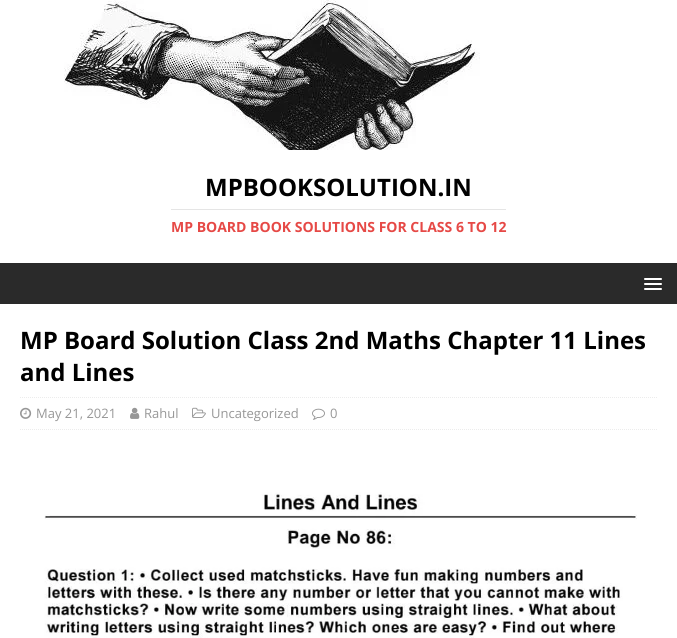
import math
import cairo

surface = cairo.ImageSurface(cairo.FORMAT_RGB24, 677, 638)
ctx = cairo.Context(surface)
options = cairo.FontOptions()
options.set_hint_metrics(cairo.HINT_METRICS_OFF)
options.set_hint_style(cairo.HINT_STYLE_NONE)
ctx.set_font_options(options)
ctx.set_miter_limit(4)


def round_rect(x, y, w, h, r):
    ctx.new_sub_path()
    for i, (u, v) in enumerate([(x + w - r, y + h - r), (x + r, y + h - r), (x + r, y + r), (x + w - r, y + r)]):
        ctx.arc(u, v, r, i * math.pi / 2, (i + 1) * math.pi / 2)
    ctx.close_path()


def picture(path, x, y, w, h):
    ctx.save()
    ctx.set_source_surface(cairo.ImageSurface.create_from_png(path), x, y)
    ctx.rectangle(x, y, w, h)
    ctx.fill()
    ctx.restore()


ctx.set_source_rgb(1, 1, 1)
ctx.paint()
picture("img1.png", 64, 0, 416, 150)
ctx.select_font_face("Open Sans", cairo.FONT_SLANT_NORMAL, cairo.FONT_WEIGHT_BOLD)
ctx.set_font_size(24)
ctx.set_source_rgb(0, 0, 0)
ctx.move_to(205, 196)
ctx.show_text("MPBOOKSOLUTION.IN")
ctx.set_source_rgb(0.898, 0.898, 0.898)
ctx.rectangle(171, 209, 335, 1)
ctx.fill()
ctx.set_font_size(14)
ctx.set_source_rgb(0.902, 0.286, 0.275)
ctx.move_to(171, 232)
ctx.show_text("MP BOARD BOOK SOLUTIONS FOR CLASS 6 TO 12")
ctx.set_source_rgb(0.165, 0.165, 0.165)
ctx.rectangle(0, 263, 677, 41)
ctx.fill()
ctx.set_source_rgb(1, 1, 1)
round_rect(644, 278, 18, 2, 1)
ctx.fill()
round_rect(644, 283, 18, 2, 1)
ctx.fill()
round_rect(644, 288, 18, 2, 1)
ctx.fill()
ctx.set_font_size(24)
ctx.set_source_rgb(0, 0, 0)
ctx.move_to(20, 349)
ctx.show_text("MP Board Solution Class 2nd Maths Chapter 11 Lines")
ctx.move_to(20, 381)
ctx.show_text("and Lines")
ctx.new_path()
ctx.move_to(20, 397.5)
ctx.line_to(657, 397.5)
ctx.set_source_rgb(0.922, 0.922, 0.922)
ctx.set_line_width(1)
ctx.set_dash([1, 1])
ctx.stroke()
ctx.new_path()
ctx.move_to(20, 429.5)
ctx.line_to(657, 429.5)
ctx.stroke()
picture("img2.png", 20, 407, 12, 12)
ctx.select_font_face("Open Sans")
ctx.set_font_size(13)
ctx.set_source_rgb(0.592, 0.592, 0.592)
ctx.move_to(36, 418)
ctx.show_text("May 21, 2021")
picture("img3.png", 130, 407, 10, 12)
ctx.move_to(144, 418)
ctx.show_text("Rahul")
picture("img4.png", 192, 407, 14, 11)
ctx.move_to(211, 418)
ctx.show_text("Uncategorized")
picture("img5.png", 312, 408, 13, 12)
ctx.move_to(330, 418)
ctx.show_text("0")
picture("img6.png", 44, 492, 593, 146)
surface.write_to_png("page.png")
